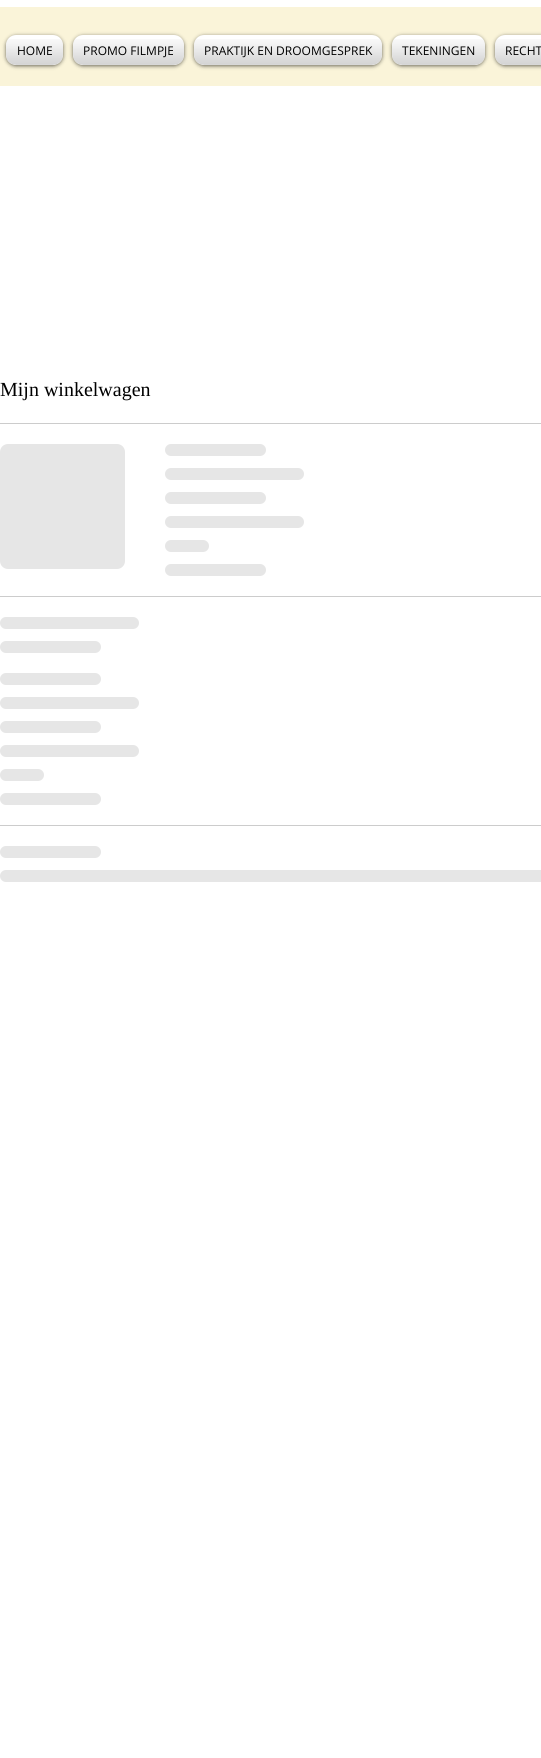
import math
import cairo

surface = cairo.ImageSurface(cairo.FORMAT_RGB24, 541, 1758)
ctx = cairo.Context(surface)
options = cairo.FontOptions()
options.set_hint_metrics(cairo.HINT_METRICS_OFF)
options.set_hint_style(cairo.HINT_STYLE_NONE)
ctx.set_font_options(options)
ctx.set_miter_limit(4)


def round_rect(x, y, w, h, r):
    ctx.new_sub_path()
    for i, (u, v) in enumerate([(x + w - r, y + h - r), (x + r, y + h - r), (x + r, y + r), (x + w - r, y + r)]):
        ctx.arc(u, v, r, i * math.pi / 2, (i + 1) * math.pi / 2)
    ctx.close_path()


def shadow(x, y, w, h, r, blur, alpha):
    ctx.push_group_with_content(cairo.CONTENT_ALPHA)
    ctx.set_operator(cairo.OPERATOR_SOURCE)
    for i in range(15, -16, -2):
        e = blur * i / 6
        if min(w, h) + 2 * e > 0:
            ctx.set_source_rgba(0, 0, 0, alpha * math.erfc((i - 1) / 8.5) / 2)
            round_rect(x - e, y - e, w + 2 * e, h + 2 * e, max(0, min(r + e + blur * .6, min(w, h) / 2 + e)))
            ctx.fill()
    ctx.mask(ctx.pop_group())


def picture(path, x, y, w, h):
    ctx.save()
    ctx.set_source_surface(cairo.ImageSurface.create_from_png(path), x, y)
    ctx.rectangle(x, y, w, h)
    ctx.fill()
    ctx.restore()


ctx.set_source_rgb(1, 1, 1)
ctx.paint()
ctx.set_source_rgb(0.98, 0.957, 0.851)
ctx.rectangle(0, 7, 541, 79)
ctx.fill()
ctx.set_source_rgb(0, 0, 0)
shadow(6, 36, 57, 30, 10, 2, 0.6)
ctx.set_source_rgb(1, 1, 1)
round_rect(6, 35, 57, 30, 10)
ctx.fill()
picture("img1.png", 6, 39, 57, 26)
ctx.select_font_face("Open Sans")
ctx.set_font_size(12)
ctx.set_source_rgb(0, 0, 0)
ctx.move_to(17, 55)
ctx.show_text("HOME")
ctx.set_source_rgb(0, 0, 0)
shadow(73, 36, 111, 30, 10, 2, 0.6)
ctx.set_source_rgb(1, 1, 1)
round_rect(73, 35, 111, 30, 10)
ctx.fill()
picture("img2.png", 73, 39, 111, 26)
ctx.set_source_rgb(0, 0, 0)
ctx.move_to(83, 55)
ctx.show_text("PROMO FILMPJE")
ctx.set_source_rgb(0, 0, 0)
shadow(194, 36, 188, 30, 10, 2, 0.6)
ctx.set_source_rgb(1, 1, 1)
round_rect(194, 35, 188, 30, 10)
ctx.fill()
picture("img3.png", 194, 39, 188, 26)
ctx.set_source_rgb(0, 0, 0)
ctx.move_to(204, 55)
ctx.show_text("PRAKTIJK EN DROOMGESPREK")
ctx.set_source_rgb(0, 0, 0)
shadow(392, 36, 93, 30, 10, 2, 0.6)
ctx.set_source_rgb(1, 1, 1)
round_rect(392, 35, 93, 30, 10)
ctx.fill()
picture("img4.png", 392, 39, 93, 26)
ctx.set_source_rgb(0, 0, 0)
ctx.move_to(402, 55)
ctx.show_text("TEKENINGEN")
ctx.set_source_rgb(0, 0, 0)
shadow(495, 36, 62, 30, 10, 2, 0.6)
ctx.set_source_rgb(1, 1, 1)
round_rect(495, 35, 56, 30, 10)
ctx.fill()
picture("img5.png", 495, 39, 46, 26)
ctx.set_source_rgb(0, 0, 0)
ctx.move_to(505, 55)
ctx.show_text("RECHT")
ctx.set_source_rgb(0.8, 0.8, 0.8)
ctx.rectangle(0, 423, 541, 1)
ctx.fill()
ctx.select_font_face("Liberation Serif")
ctx.set_font_size(20)
ctx.set_source_rgb(0, 0, 0)
ctx.move_to(0, 396)
ctx.show_text("Mijn winkelwagen")
gradient = cairo.LinearGradient(0, 507, 500, 507)
gradient.add_color_stop_rgba(0.25, 0.902, 0.902, 0.902, 1)
gradient.add_color_stop_rgba(0.37, 0.8, 0.8, 0.8, 1)
gradient.add_color_stop_rgba(0.63, 0.902, 0.902, 0.902, 1)
ctx.set_source(gradient)
round_rect(0, 444, 125, 125, 8)
ctx.fill()
gradient = cairo.LinearGradient(165, 450, 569, 450)
gradient.add_color_stop_rgba(0.25, 0.902, 0.902, 0.902, 1)
gradient.add_color_stop_rgba(0.37, 0.8, 0.8, 0.8, 1)
gradient.add_color_stop_rgba(0.63, 0.902, 0.902, 0.902, 1)
ctx.set_source(gradient)
round_rect(165, 444, 101, 12, 6)
ctx.fill()
gradient = cairo.LinearGradient(165, 474, 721, 474)
gradient.add_color_stop_rgba(0.25, 0.902, 0.902, 0.902, 1)
gradient.add_color_stop_rgba(0.37, 0.8, 0.8, 0.8, 1)
gradient.add_color_stop_rgba(0.63, 0.902, 0.902, 0.902, 1)
ctx.set_source(gradient)
round_rect(165, 468, 139, 12, 6)
ctx.fill()
gradient = cairo.LinearGradient(165, 498, 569, 498)
gradient.add_color_stop_rgba(0.25, 0.902, 0.902, 0.902, 1)
gradient.add_color_stop_rgba(0.37, 0.8, 0.8, 0.8, 1)
gradient.add_color_stop_rgba(0.63, 0.902, 0.902, 0.902, 1)
ctx.set_source(gradient)
round_rect(165, 492, 101, 12, 6)
ctx.fill()
gradient = cairo.LinearGradient(165, 522, 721, 522)
gradient.add_color_stop_rgba(0.25, 0.902, 0.902, 0.902, 1)
gradient.add_color_stop_rgba(0.37, 0.8, 0.8, 0.8, 1)
gradient.add_color_stop_rgba(0.63, 0.902, 0.902, 0.902, 1)
ctx.set_source(gradient)
round_rect(165, 516, 139, 12, 6)
ctx.fill()
gradient = cairo.LinearGradient(165, 546, 341, 546)
gradient.add_color_stop_rgba(0.25, 0.902, 0.902, 0.902, 1)
gradient.add_color_stop_rgba(0.37, 0.8, 0.8, 0.8, 1)
gradient.add_color_stop_rgba(0.63, 0.902, 0.902, 0.902, 1)
ctx.set_source(gradient)
round_rect(165, 540, 44, 12, 6)
ctx.fill()
gradient = cairo.LinearGradient(165, 570, 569, 570)
gradient.add_color_stop_rgba(0.25, 0.902, 0.902, 0.902, 1)
gradient.add_color_stop_rgba(0.37, 0.8, 0.8, 0.8, 1)
gradient.add_color_stop_rgba(0.63, 0.902, 0.902, 0.902, 1)
ctx.set_source(gradient)
round_rect(165, 564, 101, 12, 6)
ctx.fill()
ctx.set_source_rgb(0.8, 0.8, 0.8)
ctx.rectangle(0, 596, 541, 1)
ctx.fill()
gradient = cairo.LinearGradient(0, 623, 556, 623)
gradient.add_color_stop_rgba(0.25, 0.902, 0.902, 0.902, 1)
gradient.add_color_stop_rgba(0.37, 0.8, 0.8, 0.8, 1)
gradient.add_color_stop_rgba(0.63, 0.902, 0.902, 0.902, 1)
ctx.set_source(gradient)
round_rect(0, 617, 139, 12, 6)
ctx.fill()
gradient = cairo.LinearGradient(0, 647, 404, 647)
gradient.add_color_stop_rgba(0.25, 0.902, 0.902, 0.902, 1)
gradient.add_color_stop_rgba(0.37, 0.8, 0.8, 0.8, 1)
gradient.add_color_stop_rgba(0.63, 0.902, 0.902, 0.902, 1)
ctx.set_source(gradient)
round_rect(0, 641, 101, 12, 6)
ctx.fill()
gradient = cairo.LinearGradient(0, 679, 404, 679)
gradient.add_color_stop_rgba(0.25, 0.902, 0.902, 0.902, 1)
gradient.add_color_stop_rgba(0.37, 0.8, 0.8, 0.8, 1)
gradient.add_color_stop_rgba(0.63, 0.902, 0.902, 0.902, 1)
ctx.set_source(gradient)
round_rect(0, 673, 101, 12, 6)
ctx.fill()
gradient = cairo.LinearGradient(0, 703, 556, 703)
gradient.add_color_stop_rgba(0.25, 0.902, 0.902, 0.902, 1)
gradient.add_color_stop_rgba(0.37, 0.8, 0.8, 0.8, 1)
gradient.add_color_stop_rgba(0.63, 0.902, 0.902, 0.902, 1)
ctx.set_source(gradient)
round_rect(0, 697, 139, 12, 6)
ctx.fill()
gradient = cairo.LinearGradient(0, 727, 404, 727)
gradient.add_color_stop_rgba(0.25, 0.902, 0.902, 0.902, 1)
gradient.add_color_stop_rgba(0.37, 0.8, 0.8, 0.8, 1)
gradient.add_color_stop_rgba(0.63, 0.902, 0.902, 0.902, 1)
ctx.set_source(gradient)
round_rect(0, 721, 101, 12, 6)
ctx.fill()
gradient = cairo.LinearGradient(0, 751, 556, 751)
gradient.add_color_stop_rgba(0.25, 0.902, 0.902, 0.902, 1)
gradient.add_color_stop_rgba(0.37, 0.8, 0.8, 0.8, 1)
gradient.add_color_stop_rgba(0.63, 0.902, 0.902, 0.902, 1)
ctx.set_source(gradient)
round_rect(0, 745, 139, 12, 6)
ctx.fill()
gradient = cairo.LinearGradient(0, 775, 176, 775)
gradient.add_color_stop_rgba(0.25, 0.902, 0.902, 0.902, 1)
gradient.add_color_stop_rgba(0.37, 0.8, 0.8, 0.8, 1)
gradient.add_color_stop_rgba(0.63, 0.902, 0.902, 0.902, 1)
ctx.set_source(gradient)
round_rect(0, 769, 44, 12, 6)
ctx.fill()
gradient = cairo.LinearGradient(0, 799, 404, 799)
gradient.add_color_stop_rgba(0.25, 0.902, 0.902, 0.902, 1)
gradient.add_color_stop_rgba(0.37, 0.8, 0.8, 0.8, 1)
gradient.add_color_stop_rgba(0.63, 0.902, 0.902, 0.902, 1)
ctx.set_source(gradient)
round_rect(0, 793, 101, 12, 6)
ctx.fill()
ctx.set_source_rgb(0.8, 0.8, 0.8)
ctx.rectangle(0, 825, 541, 1)
ctx.fill()
gradient = cairo.LinearGradient(0, 852, 404, 852)
gradient.add_color_stop_rgba(0.25, 0.902, 0.902, 0.902, 1)
gradient.add_color_stop_rgba(0.37, 0.8, 0.8, 0.8, 1)
gradient.add_color_stop_rgba(0.63, 0.902, 0.902, 0.902, 1)
ctx.set_source(gradient)
round_rect(0, 846, 101, 12, 6)
ctx.fill()
gradient = cairo.LinearGradient(0, 876, 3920, 876)
gradient.add_color_stop_rgba(0.25, 0.902, 0.902, 0.902, 1)
gradient.add_color_stop_rgba(0.37, 0.8, 0.8, 0.8, 1)
gradient.add_color_stop_rgba(0.63, 0.902, 0.902, 0.902, 1)
ctx.set_source(gradient)
round_rect(0, 870, 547, 12, 6)
ctx.fill()
surface.write_to_png("page.png")
